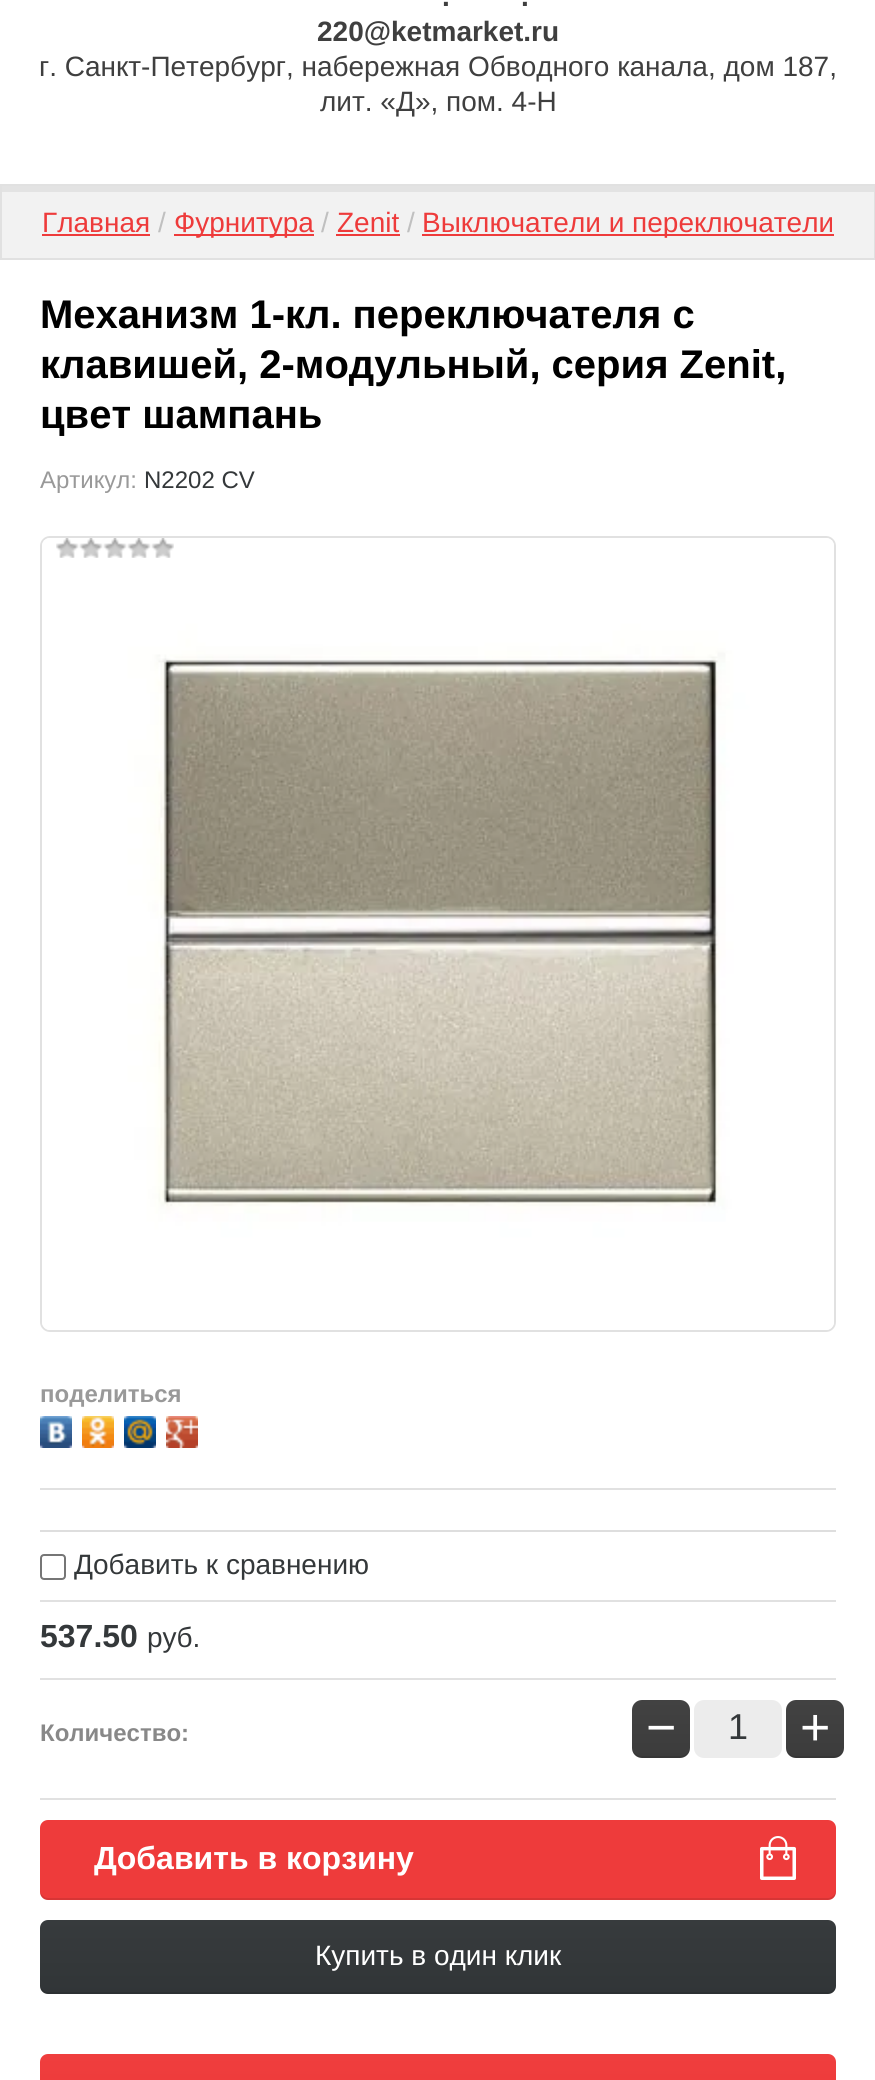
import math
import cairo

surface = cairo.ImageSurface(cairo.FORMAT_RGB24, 875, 2080)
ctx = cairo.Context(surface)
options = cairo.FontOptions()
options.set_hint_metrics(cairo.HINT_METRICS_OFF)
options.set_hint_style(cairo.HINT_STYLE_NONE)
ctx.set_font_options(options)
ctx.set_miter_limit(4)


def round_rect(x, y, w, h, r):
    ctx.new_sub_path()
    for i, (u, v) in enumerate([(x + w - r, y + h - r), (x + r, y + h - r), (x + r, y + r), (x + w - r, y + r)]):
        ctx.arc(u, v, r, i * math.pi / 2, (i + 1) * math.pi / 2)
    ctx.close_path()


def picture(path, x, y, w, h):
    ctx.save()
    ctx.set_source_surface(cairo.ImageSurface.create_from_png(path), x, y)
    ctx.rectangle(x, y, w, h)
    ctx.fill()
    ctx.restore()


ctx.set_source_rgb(1, 1, 1)
ctx.paint()
ctx.select_font_face("Liberation Sans", cairo.FONT_SLANT_NORMAL, cairo.FONT_WEIGHT_BOLD)
ctx.set_font_size(28)
ctx.set_source_rgb(0.247, 0.247, 0.247)
ctx.move_to(442, 6)
ctx.show_text(".")
ctx.move_to(521, 6)
ctx.show_text(".")
ctx.move_to(317, 41)
ctx.show_text("220@ketmarket.ru")
ctx.select_font_face("Liberation Sans")
ctx.move_to(39, 76)
ctx.show_text("г. Санкт-Петербург, набережная Обводного канала, дом 187,")
ctx.move_to(320, 111)
ctx.show_text("лит. «Д», пом. 4-Н")
ctx.set_source_rgb(0.949, 0.949, 0.949)
ctx.rectangle(2, 192, 872, 66)
ctx.fill()
ctx.set_source_rgb(0.89, 0.89, 0.89)
ctx.rectangle(2, 186, 872, 6)
ctx.fill()
ctx.rectangle(1, 185, 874, 74)
ctx.set_source_rgb(0.882, 0.882, 0.882)
ctx.stroke()
ctx.set_source_rgb(0.933, 0.231, 0.231)
ctx.move_to(42, 232)
ctx.show_text("Главная")
ctx.rectangle(42, 234, 108, 2)
ctx.fill()
ctx.set_source_rgb(0.753, 0.753, 0.753)
ctx.move_to(158, 232)
ctx.show_text("/")
ctx.set_source_rgb(0.933, 0.231, 0.231)
ctx.rectangle(174, 234, 140, 2)
ctx.fill()
ctx.move_to(174, 232)
ctx.show_text("Фурнитура")
ctx.set_source_rgb(0.753, 0.753, 0.753)
ctx.move_to(321, 232)
ctx.show_text("/")
ctx.set_source_rgb(0.933, 0.231, 0.231)
ctx.move_to(337, 232)
ctx.show_text("Zenit")
ctx.rectangle(336, 234, 64, 2)
ctx.fill()
ctx.set_source_rgb(0.753, 0.753, 0.753)
ctx.move_to(407, 232)
ctx.show_text("/")
ctx.set_source_rgb(0.933, 0.231, 0.231)
ctx.rectangle(422, 234, 412, 2)
ctx.fill()
ctx.move_to(422, 232)
ctx.show_text("Выключатели и переключатели")
ctx.select_font_face("Liberation Sans", cairo.FONT_SLANT_NORMAL, cairo.FONT_WEIGHT_BOLD)
ctx.set_font_size(40)
ctx.set_source_rgb(0, 0, 0)
ctx.move_to(40, 328)
ctx.show_text("Механизм 1-кл. переключателя с")
ctx.move_to(40, 378)
ctx.show_text("клавишей, 2-модульный, серия Zenit,")
ctx.move_to(40, 428)
ctx.show_text("цвет шампань")
ctx.select_font_face("Liberation Sans")
ctx.set_font_size(24)
ctx.set_source_rgb(0.6, 0.6, 0.6)
ctx.move_to(40, 488)
ctx.show_text("Артикул:")
ctx.set_source_rgb(0.204, 0.22, 0.227)
ctx.move_to(144, 488)
ctx.show_text("N2202 CV")
ctx.set_source_rgb(0.882, 0.882, 0.882)
ctx.rectangle(40, 1488, 796, 2)
ctx.fill()
round_rect(41, 537, 794, 794, 9)
ctx.stroke()
picture("img1.png", 42, 538, 792, 792)
picture("img2.png", 56, 538, 118, 20)
ctx.select_font_face("Liberation Sans", cairo.FONT_SLANT_NORMAL, cairo.FONT_WEIGHT_BOLD)
ctx.set_source_rgb(0.6, 0.6, 0.6)
ctx.move_to(40, 1402)
ctx.show_text("поделиться")
picture("img3.png", 40, 1416, 32, 32)
picture("img4.png", 82, 1416, 32, 32)
picture("img5.png", 124, 1416, 32, 32)
picture("img6.png", 166, 1416, 32, 32)
ctx.set_source_rgb(0.871, 0.871, 0.871)
ctx.rectangle(40, 1530, 796, 2)
ctx.fill()
round_rect(41, 1555, 24, 24, 3)
ctx.set_source_rgb(0.463, 0.463, 0.463)
ctx.stroke()
ctx.select_font_face("Liberation Sans")
ctx.set_font_size(28)
ctx.set_source_rgb(0.204, 0.22, 0.227)
ctx.move_to(74, 1574)
ctx.show_text("Добавить к сравнению")
ctx.set_source_rgb(0.882, 0.882, 0.882)
ctx.rectangle(40, 1600, 796, 2)
ctx.fill()
ctx.select_font_face("Liberation Sans", cairo.FONT_SLANT_NORMAL, cairo.FONT_WEIGHT_BOLD)
ctx.set_font_size(32)
ctx.set_source_rgb(0.204, 0.22, 0.227)
ctx.move_to(40, 1647)
ctx.show_text("537.50")
ctx.select_font_face("Liberation Sans")
ctx.set_font_size(28)
ctx.move_to(147, 1647)
ctx.show_text("руб.")
ctx.set_source_rgb(0.882, 0.882, 0.882)
ctx.rectangle(40, 1678, 796, 2)
ctx.fill()
ctx.rectangle(40, 1798, 796, 2)
ctx.fill()
ctx.select_font_face("Liberation Sans", cairo.FONT_SLANT_NORMAL, cairo.FONT_WEIGHT_BOLD)
ctx.set_font_size(24)
ctx.set_source_rgb(0.533, 0.533, 0.533)
ctx.move_to(40, 1741)
ctx.show_text("Количество:")
gradient = cairo.LinearGradient(661, 1758, 661, 1700)
gradient.add_color_stop_rgba(0, 0.235, 0.235, 0.235, 1)
gradient.add_color_stop_rgba(1, 0.259, 0.259, 0.259, 1)
ctx.set_source(gradient)
round_rect(632, 1700, 58, 58, 10)
ctx.fill()
ctx.set_source_rgba(0, 0, 0, 0.1)
ctx.new_path()
ctx.move_to(632, 1746)
ctx.curve_to(632, 1758, 639, 1758, 648, 1758)
ctx.line_to(674, 1758)
ctx.curve_to(683, 1758, 690, 1758, 690, 1746)
ctx.curve_to(690, 1752, 686, 1756, 680, 1756)
ctx.line_to(642, 1756)
ctx.curve_to(636, 1756, 632, 1752, 632, 1746)
ctx.close_path()
ctx.fill()
ctx.select_font_face("Liberation Sans")
ctx.set_font_size(52)
ctx.set_source_rgb(1, 1, 1)
ctx.move_to(646, 1745)
ctx.show_text("−")
ctx.set_source_rgb(0.925, 0.925, 0.925)
round_rect(694, 1700, 88, 58, 10)
ctx.fill()
ctx.set_font_size(36)
ctx.set_source_rgb(0.204, 0.22, 0.227)
ctx.move_to(728, 1739)
ctx.show_text("1")
gradient = cairo.LinearGradient(815, 1758, 815, 1700)
gradient.add_color_stop_rgba(0, 0.235, 0.235, 0.235, 1)
gradient.add_color_stop_rgba(1, 0.259, 0.259, 0.259, 1)
ctx.set_source(gradient)
round_rect(786, 1700, 58, 58, 10)
ctx.fill()
ctx.set_source_rgba(0, 0, 0, 0.1)
ctx.new_path()
ctx.move_to(786, 1746)
ctx.curve_to(786, 1758, 793, 1758, 802, 1758)
ctx.line_to(828, 1758)
ctx.curve_to(837, 1758, 844, 1758, 844, 1746)
ctx.curve_to(844, 1752, 840, 1756, 834, 1756)
ctx.line_to(796, 1756)
ctx.curve_to(790, 1756, 786, 1752, 786, 1746)
ctx.close_path()
ctx.fill()
ctx.set_font_size(52)
ctx.set_source_rgb(1, 1, 1)
ctx.move_to(800, 1745)
ctx.show_text("+")
ctx.set_source_rgb(0.933, 0.231, 0.231)
round_rect(40, 1820, 796, 80, 8)
ctx.fill()
ctx.set_source_rgba(0, 0, 0, 0.1)
ctx.new_path()
ctx.move_to(40, 1890)
ctx.curve_to(40, 1895, 42, 1900, 48, 1900)
ctx.line_to(828, 1900)
ctx.curve_to(834, 1900, 836, 1895, 836, 1890)
ctx.curve_to(836, 1894, 832, 1898, 828, 1898)
ctx.line_to(48, 1898)
ctx.curve_to(44, 1898, 40, 1894, 40, 1890)
ctx.close_path()
ctx.fill()
ctx.select_font_face("Liberation Sans", cairo.FONT_SLANT_NORMAL, cairo.FONT_WEIGHT_BOLD)
ctx.set_font_size(32)
ctx.set_source_rgb(1, 1, 1)
ctx.move_to(94, 1869)
ctx.show_text("Добавить в корзину")
picture("img7.png", 760, 1836, 36, 44)
gradient = cairo.LinearGradient(438, 1994, 438, 1920)
gradient.add_color_stop_rgba(0, 0.192, 0.208, 0.216, 1)
gradient.add_color_stop_rgba(1, 0.216, 0.231, 0.239, 1)
ctx.set_source(gradient)
round_rect(40, 1920, 796, 74, 8)
ctx.fill()
ctx.set_source_rgba(0, 0, 0, 0.1)
ctx.new_path()
ctx.move_to(40, 1984)
ctx.curve_to(40, 1989, 42, 1994, 48, 1994)
ctx.line_to(828, 1994)
ctx.curve_to(834, 1994, 836, 1989, 836, 1984)
ctx.curve_to(836, 1988, 832, 1992, 828, 1992)
ctx.line_to(48, 1992)
ctx.curve_to(44, 1992, 40, 1988, 40, 1984)
ctx.close_path()
ctx.fill()
ctx.select_font_face("Liberation Sans")
ctx.set_font_size(28)
ctx.set_source_rgb(1, 1, 1)
ctx.move_to(315, 1965)
ctx.show_text("Купить в один клик")
gradient = cairo.LinearGradient(438, 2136, 438, 2054)
gradient.add_color_stop_rgba(0, 0.929, 0.22, 0.22, 1)
gradient.add_color_stop_rgba(1, 0.937, 0.243, 0.243, 1)
ctx.set_source(gradient)
round_rect(40, 2054, 796, 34, 8)
ctx.fill()
surface.write_to_png("page.png")
